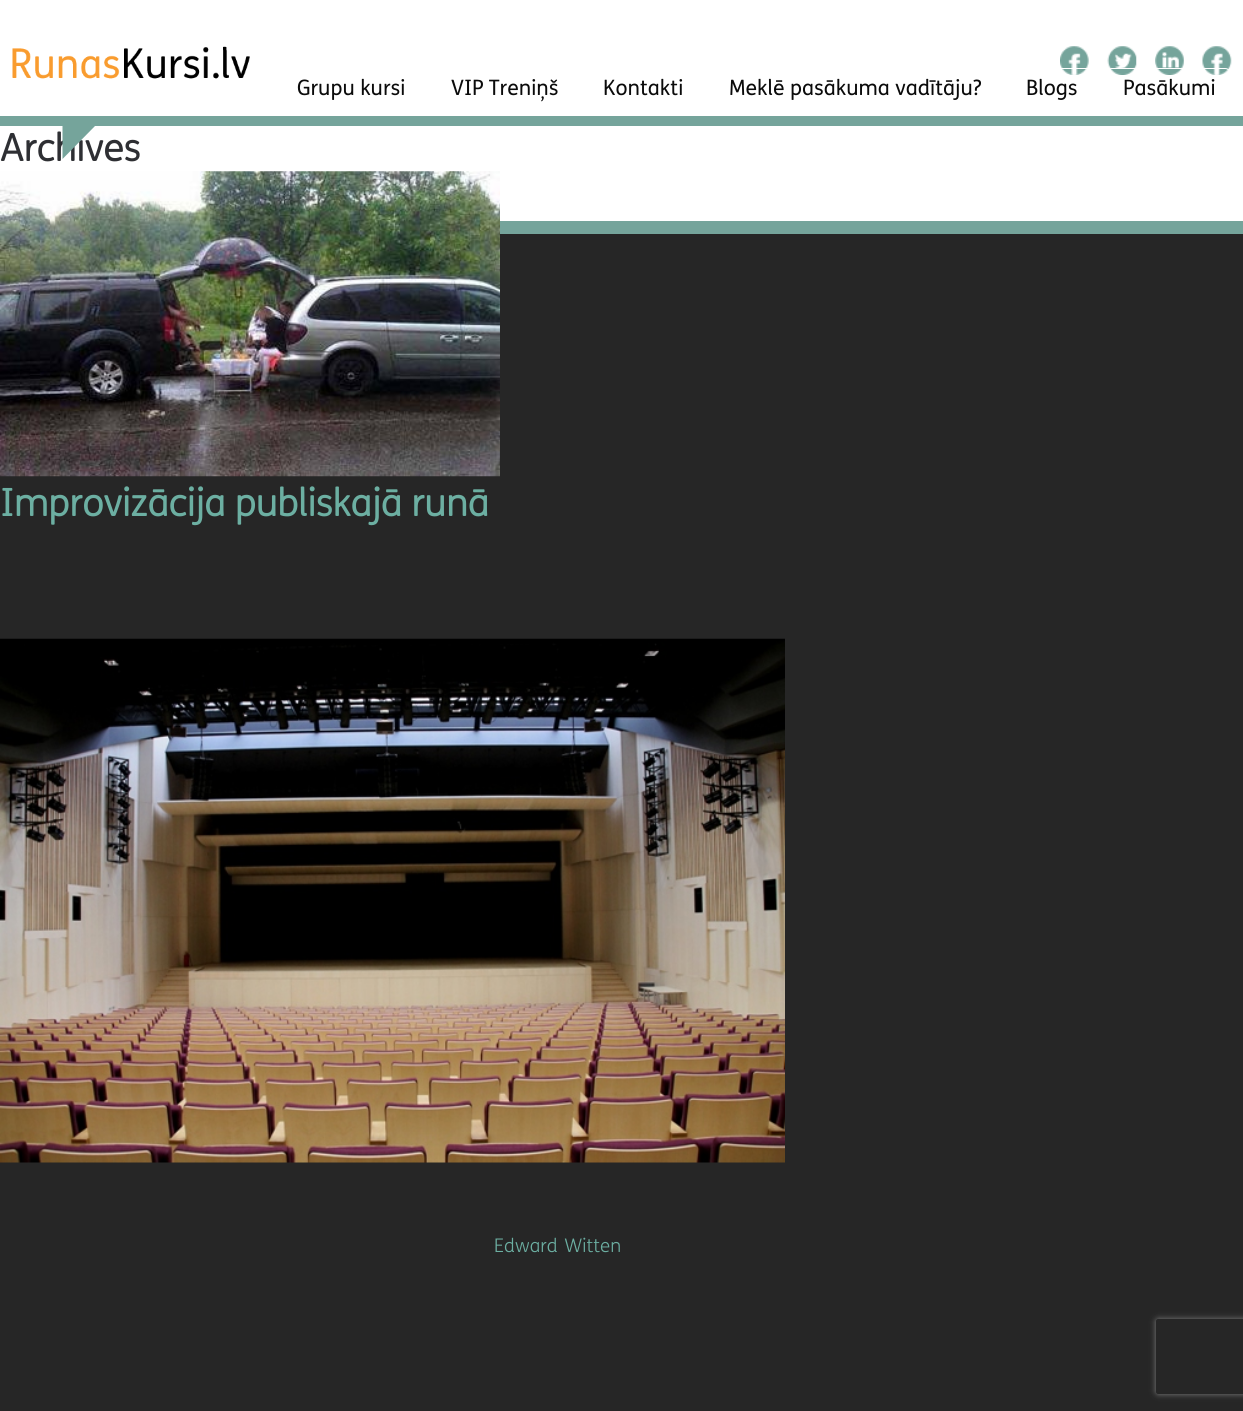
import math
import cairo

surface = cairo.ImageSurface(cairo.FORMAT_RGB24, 1243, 1411)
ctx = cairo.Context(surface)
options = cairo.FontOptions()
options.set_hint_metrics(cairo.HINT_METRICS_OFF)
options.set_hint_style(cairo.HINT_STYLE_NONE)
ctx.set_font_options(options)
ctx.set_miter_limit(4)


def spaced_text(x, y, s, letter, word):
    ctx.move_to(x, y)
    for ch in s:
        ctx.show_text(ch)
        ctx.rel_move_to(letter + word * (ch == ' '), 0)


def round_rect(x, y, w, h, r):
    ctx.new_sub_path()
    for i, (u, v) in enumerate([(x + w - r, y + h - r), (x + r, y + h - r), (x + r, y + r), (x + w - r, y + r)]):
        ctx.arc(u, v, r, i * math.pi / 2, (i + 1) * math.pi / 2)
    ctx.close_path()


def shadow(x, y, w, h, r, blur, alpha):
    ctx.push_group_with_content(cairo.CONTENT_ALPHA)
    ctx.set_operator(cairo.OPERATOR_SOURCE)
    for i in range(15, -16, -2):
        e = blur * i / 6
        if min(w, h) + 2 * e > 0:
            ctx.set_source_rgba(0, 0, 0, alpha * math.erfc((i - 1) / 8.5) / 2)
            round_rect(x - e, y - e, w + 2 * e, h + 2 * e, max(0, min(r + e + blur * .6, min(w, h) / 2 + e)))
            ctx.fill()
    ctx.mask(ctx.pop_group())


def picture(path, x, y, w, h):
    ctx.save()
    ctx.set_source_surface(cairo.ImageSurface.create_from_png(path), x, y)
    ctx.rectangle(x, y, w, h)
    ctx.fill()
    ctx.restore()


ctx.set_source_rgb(1, 1, 1)
ctx.paint()
ctx.set_source_rgb(0.459, 0.643, 0.608)
ctx.rectangle(0, 116, 1243, 10)
ctx.fill()
picture("img1.png", 12, 46, 238, 33)
picture("img2.png", 1060, 46, 29, 29)
picture("img3.png", 1107, 46, 30, 29)
picture("img4.png", 1155, 46, 29, 29)
picture("img5.png", 1202, 46, 30, 29)
ctx.select_font_face("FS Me")
ctx.set_font_size(21.25)
ctx.set_source_rgb(0.043, 0.043, 0.043)
ctx.move_to(297, 95)
ctx.show_text("Grupu kursi")
ctx.move_to(451, 95)
ctx.show_text("VIP Treniņš")
ctx.move_to(603, 95)
ctx.show_text("Kontakti")
ctx.move_to(729, 95)
ctx.show_text("Meklē pasākuma vadītāju?")
round_rect(1010.5, 68.5, 83, 40, 5.5)
ctx.set_source_rgb(1, 1, 1)
ctx.set_line_width(1)
ctx.stroke()
ctx.set_source_rgb(0.043, 0.043, 0.043)
ctx.move_to(1026, 95)
ctx.show_text("Blogs")
round_rect(1106.5, 68.5, 124, 40, 5.5)
ctx.set_source_rgb(1, 1, 1)
ctx.stroke()
ctx.set_source_rgb(0.043, 0.043, 0.043)
ctx.move_to(1123, 95)
ctx.show_text("Pasākumi")
ctx.select_font_face("FS Me", cairo.FONT_SLANT_NORMAL, cairo.FONT_WEIGHT_BOLD)
ctx.set_font_size(37.5)
ctx.set_source_rgb(0.18, 0.184, 0.2)
ctx.move_to(0, 161)
ctx.show_text("Archives")
ctx.set_source_rgb(0.459, 0.643, 0.608)
ctx.new_path()
ctx.move_to(62.5, 126)
ctx.line_to(95, 126)
ctx.line_to(62.5, 159)
ctx.close_path()
ctx.fill()
ctx.set_source_rgb(0.149, 0.149, 0.149)
ctx.rectangle(0, 234, 1243, 1177)
ctx.fill()
picture("img6.png", 0, 171, 500, 306)
ctx.set_source_rgb(0.424, 0.686, 0.635)
ctx.move_to(0, 516)
ctx.show_text("Improvizācija publiskajā runā")
picture("img7.png", 0, 638, 785, 525)
ctx.select_font_face("FS Me Light")
ctx.set_font_size(18.75)
spaced_text(494, 1252, "Edward Witten", 0, 2)
ctx.set_source_rgb(0.459, 0.643, 0.608)
ctx.rectangle(500, 221, 743, 13)
ctx.fill()
ctx.save()
ctx.set_fill_rule(cairo.FILL_RULE_EVEN_ODD)
ctx.new_path()
ctx.move_to(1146, 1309)
ctx.line_to(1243, 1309)
ctx.line_to(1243, 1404)
ctx.line_to(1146, 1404)
ctx.close_path()
ctx.move_to(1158.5, 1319)
ctx.line_to(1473.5, 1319)
ctx.curve_to(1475, 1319, 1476, 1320, 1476, 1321.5)
ctx.line_to(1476, 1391.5)
ctx.curve_to(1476, 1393, 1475, 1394, 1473.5, 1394)
ctx.line_to(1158.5, 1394)
ctx.curve_to(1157, 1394, 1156, 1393, 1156, 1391.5)
ctx.line_to(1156, 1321.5)
ctx.curve_to(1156, 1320, 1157, 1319, 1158.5, 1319)
ctx.close_path()
ctx.clip()
ctx.set_source_rgb(0.502, 0.502, 0.502)
shadow(1156, 1319, 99, 75, 2.5, 3, 1)
ctx.restore()
surface.write_to_png("page.png")
